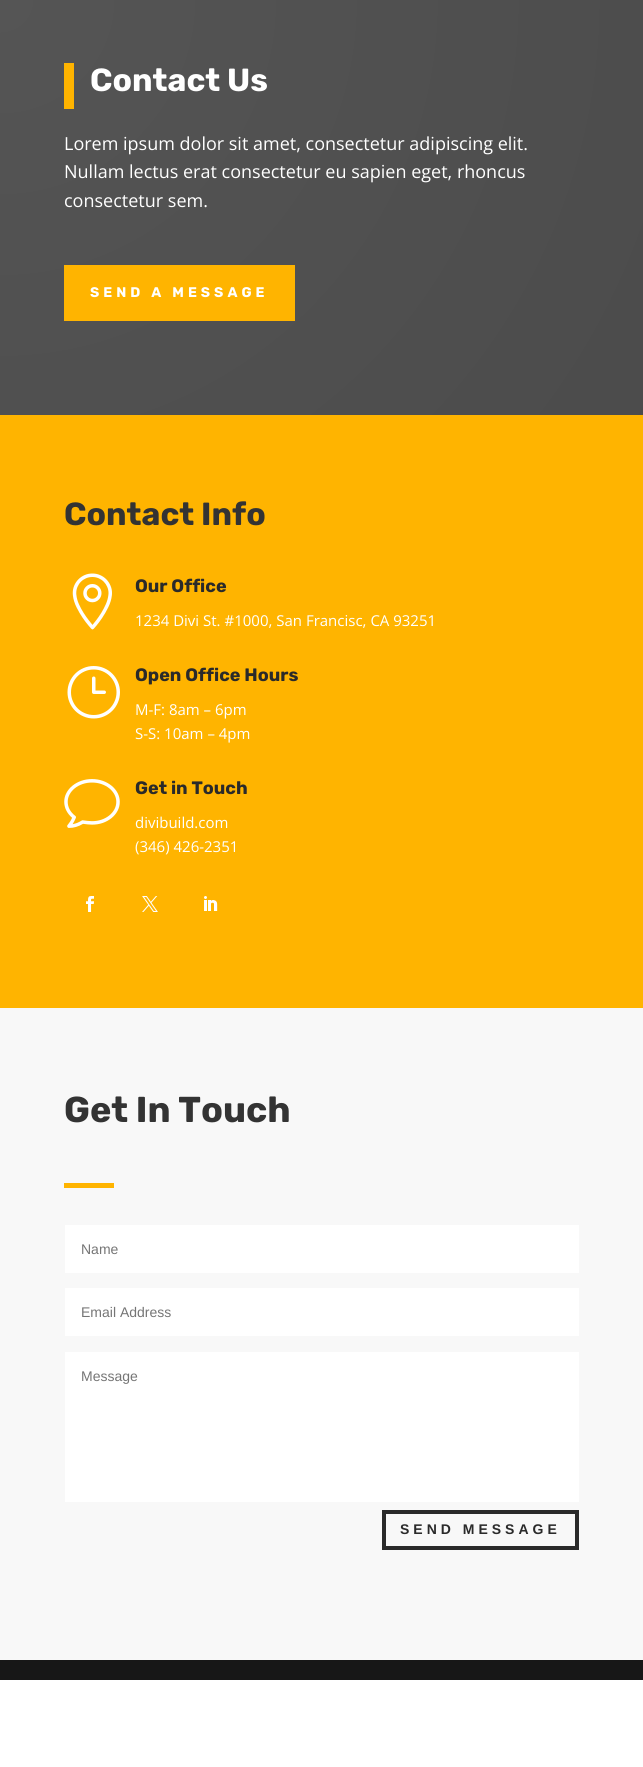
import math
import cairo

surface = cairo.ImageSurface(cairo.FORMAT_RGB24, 643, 1767)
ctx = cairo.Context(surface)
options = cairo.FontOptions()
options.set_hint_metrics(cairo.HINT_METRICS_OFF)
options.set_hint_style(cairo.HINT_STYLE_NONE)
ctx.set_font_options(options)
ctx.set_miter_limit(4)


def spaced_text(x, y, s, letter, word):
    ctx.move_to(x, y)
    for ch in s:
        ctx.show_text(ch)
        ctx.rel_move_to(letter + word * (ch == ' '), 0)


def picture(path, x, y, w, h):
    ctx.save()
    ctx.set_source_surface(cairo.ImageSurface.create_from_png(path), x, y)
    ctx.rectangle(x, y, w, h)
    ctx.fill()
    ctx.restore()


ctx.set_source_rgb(1, 1, 1)
ctx.paint()
gradient = cairo.RadialGradient(0, -1, 0, 0, -1, 1196)
gradient.add_color_stop_rgba(0, 0.333, 0.333, 0.333, 1)
gradient.add_color_stop_rgba(1, 0.275, 0.275, 0.275, 1)
ctx.set_source(gradient)
ctx.rectangle(0, 0, 643, 415)
ctx.fill()
ctx.set_source_rgb(1, 0.706, 0)
ctx.rectangle(64, 63, 10, 46)
ctx.fill()
ctx.select_font_face("Rubik Light")
ctx.set_font_size(32)
ctx.set_source_rgb(1, 1, 1)
ctx.move_to(90, 91)
ctx.show_text("Contact Us")
ctx.select_font_face("Open Sans")
ctx.set_font_size(18)
ctx.move_to(64, 150)
ctx.show_text("Lorem ipsum dolor sit amet, consectetur adipiscing elit.")
ctx.move_to(64, 178)
ctx.show_text("Nullam lectus erat consectetur eu sapien eget, rhoncus")
ctx.move_to(64, 207)
ctx.show_text("consectetur sem.")
ctx.set_source_rgb(1, 0.706, 0)
ctx.rectangle(64, 265, 231, 56)
ctx.fill()
ctx.select_font_face("Rubik Light")
ctx.set_font_size(14)
ctx.set_source_rgb(1, 1, 1)
spaced_text(90, 297, "SEND A MESSAGE", 4, 0)
ctx.set_source_rgb(1, 0.706, 0)
ctx.rectangle(0, 415, 643, 593)
ctx.fill()
ctx.set_font_size(32)
ctx.set_source_rgb(0.2, 0.2, 0.2)
ctx.move_to(64, 525)
ctx.show_text("Contact Info")
picture("img1.png", 72, 573, 40, 57)
ctx.set_font_size(18)
ctx.set_source_rgb(0.165, 0.165, 0.165)
ctx.move_to(135, 592)
ctx.show_text("Our Office")
ctx.select_font_face("Open Sans")
ctx.set_font_size(15)
ctx.set_source_rgb(1, 1, 1)
ctx.move_to(135, 626)
ctx.show_text("1234 Divi St. #1000, San Francisc, CA 93251")
picture("img2.png", 67, 666, 53, 53)
ctx.select_font_face("Rubik Light")
ctx.set_font_size(18)
ctx.set_source_rgb(0.165, 0.165, 0.165)
ctx.move_to(135, 681)
ctx.show_text("Open Office Hours")
ctx.select_font_face("Open Sans")
ctx.set_font_size(15)
ctx.set_source_rgb(1, 1, 1)
ctx.move_to(135, 715)
ctx.show_text("M-F: 8am – 6pm")
ctx.move_to(135, 739)
ctx.show_text("S-S: 10am – 4pm")
picture("img3.png", 64, 779, 56, 49)
ctx.select_font_face("Rubik Light")
ctx.set_font_size(18)
ctx.set_source_rgb(0.165, 0.165, 0.165)
ctx.move_to(135, 794)
ctx.show_text("Get in Touch")
ctx.select_font_face("Open Sans")
ctx.set_font_size(15)
ctx.set_source_rgb(1, 1, 1)
ctx.move_to(135, 828)
ctx.show_text("divibuild.com")
ctx.move_to(135, 852)
ctx.show_text("(346) 426-2351")
picture("img4.png", 86, 896, 8, 16)
picture("img5.png", 142, 896, 16, 16)
picture("img6.png", 204, 896, 14, 15)
ctx.set_source_rgb(0.969, 0.969, 0.969)
ctx.rectangle(0, 1008, 643, 652)
ctx.fill()
ctx.select_font_face("Rubik Light")
ctx.set_font_size(36)
ctx.set_source_rgb(0.2, 0.2, 0.2)
ctx.move_to(64, 1122)
ctx.show_text("Get In Touch")
ctx.set_source_rgb(1, 0.706, 0)
ctx.rectangle(64, 1183, 50, 5)
ctx.fill()
ctx.set_source_rgb(1, 1, 1)
ctx.rectangle(65, 1225, 514, 48)
ctx.fill()
ctx.select_font_face("Arimo")
ctx.set_font_size(14)
ctx.set_source_rgb(0.459, 0.459, 0.459)
ctx.move_to(81, 1254)
ctx.show_text("Name")
ctx.set_source_rgb(1, 1, 1)
ctx.rectangle(65, 1288, 514, 48)
ctx.fill()
ctx.set_source_rgb(0.459, 0.459, 0.459)
ctx.move_to(81, 1317)
ctx.show_text("Email Address")
ctx.set_source_rgb(1, 1, 1)
ctx.rectangle(65, 1352, 514, 150)
ctx.fill()
ctx.set_source_rgb(0.459, 0.459, 0.459)
ctx.move_to(81, 1381)
ctx.show_text("Message")
ctx.rectangle(384, 1512, 193, 36)
ctx.set_source_rgb(0.165, 0.165, 0.165)
ctx.set_line_width(4)
ctx.stroke()
ctx.select_font_face("Arimo", cairo.FONT_SLANT_NORMAL, cairo.FONT_WEIGHT_BOLD)
spaced_text(400, 1534, "SEND MESSAGE", 4, 0)
ctx.set_source_rgb(0.09, 0.09, 0.09)
ctx.rectangle(0, 1660, 643, 20)
ctx.fill()
surface.write_to_png("page.png")
